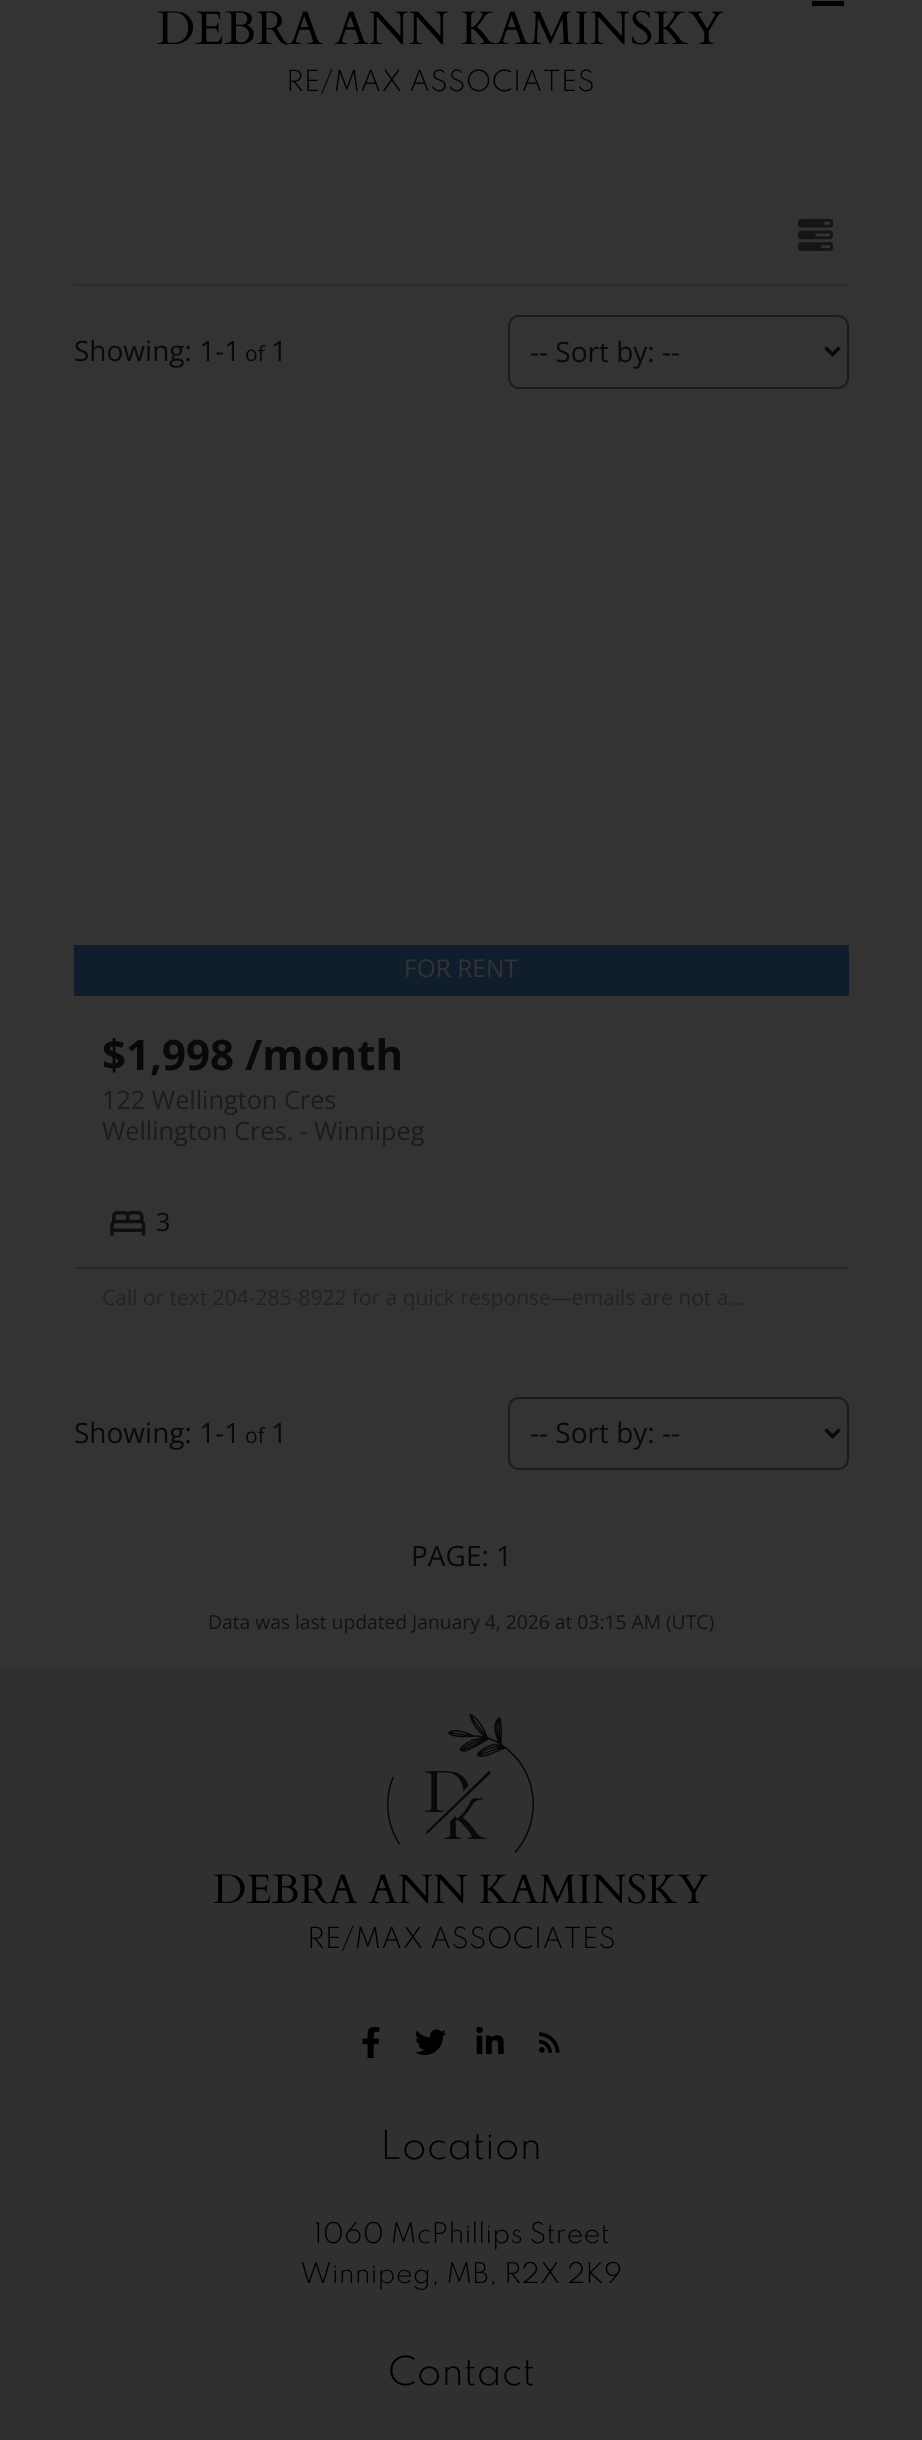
import math
import cairo

surface = cairo.ImageSurface(cairo.FORMAT_RGB24, 922, 2440)
ctx = cairo.Context(surface)
options = cairo.FontOptions()
options.set_hint_metrics(cairo.HINT_METRICS_OFF)
options.set_hint_style(cairo.HINT_STYLE_NONE)
ctx.set_font_options(options)
ctx.set_miter_limit(4)


def round_rect(x, y, w, h, r):
    ctx.new_sub_path()
    for i, (u, v) in enumerate([(x + w - r, y + h - r), (x + r, y + h - r), (x + r, y + r), (x + w - r, y + r)]):
        ctx.arc(u, v, r, i * math.pi / 2, (i + 1) * math.pi / 2)
    ctx.close_path()


def picture(path, x, y, w, h):
    ctx.save()
    ctx.set_source_surface(cairo.ImageSurface.create_from_png(path), x, y)
    ctx.rectangle(x, y, w, h)
    ctx.fill()
    ctx.restore()


ctx.set_source_rgb(0.2, 0.2, 0.2)
ctx.paint()
ctx.set_source_rgb(0, 0, 0)
ctx.rectangle(812, 1, 32, 5)
ctx.fill()
ctx.select_font_face("Cardo")
ctx.set_font_size(47)
ctx.move_to(157, 44)
ctx.show_text("DEBRA ANN KAMINSKY")
ctx.select_font_face("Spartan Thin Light")
ctx.set_font_size(25.75)
ctx.move_to(286, 91)
ctx.show_text("RE/MAX ASSOCIATES")
picture("img1.png", 798, 218, 35, 33)
ctx.set_source_rgb(0.173, 0.173, 0.173)
ctx.rectangle(74, 284, 775, 2)
ctx.fill()
ctx.select_font_face("Open Sans")
ctx.set_font_size(28)
ctx.set_source_rgb(0.039, 0.039, 0.039)
ctx.move_to(74, 361)
ctx.show_text("Showing: 1-1")
ctx.set_font_size(21)
ctx.move_to(245, 361)
ctx.show_text("of")
ctx.set_font_size(28)
ctx.move_to(271, 361)
ctx.show_text("1")
round_rect(509, 316, 339, 72, 10)
ctx.set_source_rgb(0.106, 0.106, 0.106)
ctx.stroke()
ctx.new_path()
ctx.move_to(825.5, 347.5)
ctx.line_to(832.5, 354.5)
ctx.line_to(839.5, 347.5)
ctx.set_source_rgb(0.039, 0.039, 0.039)
ctx.set_line_width(3.5)
ctx.stroke()
ctx.move_to(530, 362)
ctx.show_text("-- Sort by: --")
ctx.set_source_rgb(0.059, 0.114, 0.176)
ctx.rectangle(74, 945, 775, 51)
ctx.fill()
ctx.set_font_size(24.5)
ctx.set_source_rgb(0.2, 0.2, 0.2)
ctx.move_to(404, 977)
ctx.show_text("FOR RENT")
ctx.select_font_face("Open Sans", cairo.FONT_SLANT_NORMAL, cairo.FONT_WEIGHT_BOLD)
ctx.set_font_size(42)
ctx.set_source_rgb(0.039, 0.039, 0.039)
ctx.move_to(102, 1070)
ctx.show_text("$1,998 /month")
ctx.select_font_face("Open Sans")
ctx.set_font_size(25.25)
ctx.set_source_rgb(0.106, 0.106, 0.106)
ctx.move_to(102, 1109)
ctx.show_text("122 Wellington Cres")
ctx.move_to(102, 1140)
ctx.show_text("Wellington Cres. -")
ctx.move_to(314, 1140)
ctx.show_text("Winnipeg")
picture("img2.png", 110, 1211, 36, 25)
ctx.set_source_rgb(0.039, 0.039, 0.039)
ctx.move_to(156, 1231)
ctx.show_text("3")
ctx.set_source_rgb(0.157, 0.157, 0.157)
ctx.rectangle(74, 1267, 775, 2)
ctx.fill()
ctx.set_font_size(21)
ctx.set_source_rgb(0.133, 0.133, 0.133)
ctx.move_to(102, 1305)
ctx.show_text("Call or text 204-285-8922 for a quick response—emails are not a…")
ctx.set_font_size(28)
ctx.set_source_rgb(0.039, 0.039, 0.039)
ctx.move_to(74, 1443)
ctx.show_text("Showing: 1-1")
ctx.set_font_size(21)
ctx.move_to(245, 1443)
ctx.show_text("of")
ctx.set_font_size(28)
ctx.move_to(271, 1443)
ctx.show_text("1")
round_rect(509, 1398, 339, 71, 10)
ctx.set_source_rgb(0.106, 0.106, 0.106)
ctx.set_line_width(2)
ctx.stroke()
ctx.new_path()
ctx.move_to(825.5, 1429.5)
ctx.line_to(832.5, 1436.5)
ctx.line_to(839.5, 1429.5)
ctx.set_source_rgb(0.039, 0.039, 0.039)
ctx.set_line_width(3.5)
ctx.stroke()
ctx.move_to(530, 1443)
ctx.show_text("-- Sort by: --")
ctx.move_to(411, 1566)
ctx.show_text("PAGE: 1")
ctx.set_font_size(19.25)
ctx.set_source_rgb(0.071, 0.071, 0.071)
ctx.move_to(208, 1629)
ctx.show_text("Data was last updated January 4, 2026 at 03:15 AM (UTC)")
ctx.set_source_rgb(0.188, 0.188, 0.188)
ctx.rectangle(0, 1668, 922, 772)
ctx.fill()
picture("img3.png", 387, 1713, 147, 140)
ctx.set_source_rgb(0.039, 0.039, 0.039)
ctx.new_path()
ctx.move_to(426, 1832)
ctx.line_to(489, 1771)
ctx.line_to(491, 1773)
ctx.line_to(427, 1834)
ctx.close_path()
ctx.fill()
ctx.save()
ctx.new_path()
ctx.move_to(387.5, 1720)
ctx.line_to(534.5, 1720)
ctx.line_to(387.5, 1867)
ctx.close_path()
ctx.clip()
ctx.select_font_face("Cardo")
ctx.set_font_size(59)
ctx.move_to(424, 1812)
ctx.show_text("D")
ctx.restore()
ctx.save()
ctx.new_path()
ctx.move_to(526, 1892.5)
ctx.line_to(526, 1745.5)
ctx.line_to(379, 1892.5)
ctx.close_path()
ctx.clip()
ctx.select_font_face("Cardo")
ctx.set_font_size(59)
ctx.move_to(443, 1839)
ctx.show_text("K")
ctx.restore()
ctx.select_font_face("Cardo")
ctx.set_font_size(41.1)
ctx.set_source_rgb(0, 0, 0)
ctx.move_to(213, 1903)
ctx.show_text("DEBRA ANN KAMINSKY")
ctx.select_font_face("Spartan Thin Light")
ctx.set_font_size(25.75)
ctx.move_to(307, 1948)
ctx.show_text("RE/MAX ASSOCIATES")
picture("img4.png", 362, 2027, 18, 31)
picture("img5.png", 415, 2029, 31, 27)
picture("img6.png", 476, 2027, 28, 28)
picture("img7.png", 539, 2032, 21, 21)
ctx.set_font_size(35.25)
ctx.move_to(380, 2159)
ctx.show_text("Location")
ctx.set_font_size(25.25)
ctx.move_to(314, 2243)
ctx.show_text("1060 McPhillips Street")
ctx.move_to(300, 2283)
ctx.show_text("Winnipeg, MB, R2X 2K9")
ctx.set_font_size(35.25)
ctx.move_to(388, 2385)
ctx.show_text("Contact")
surface.write_to_png("page.png")
